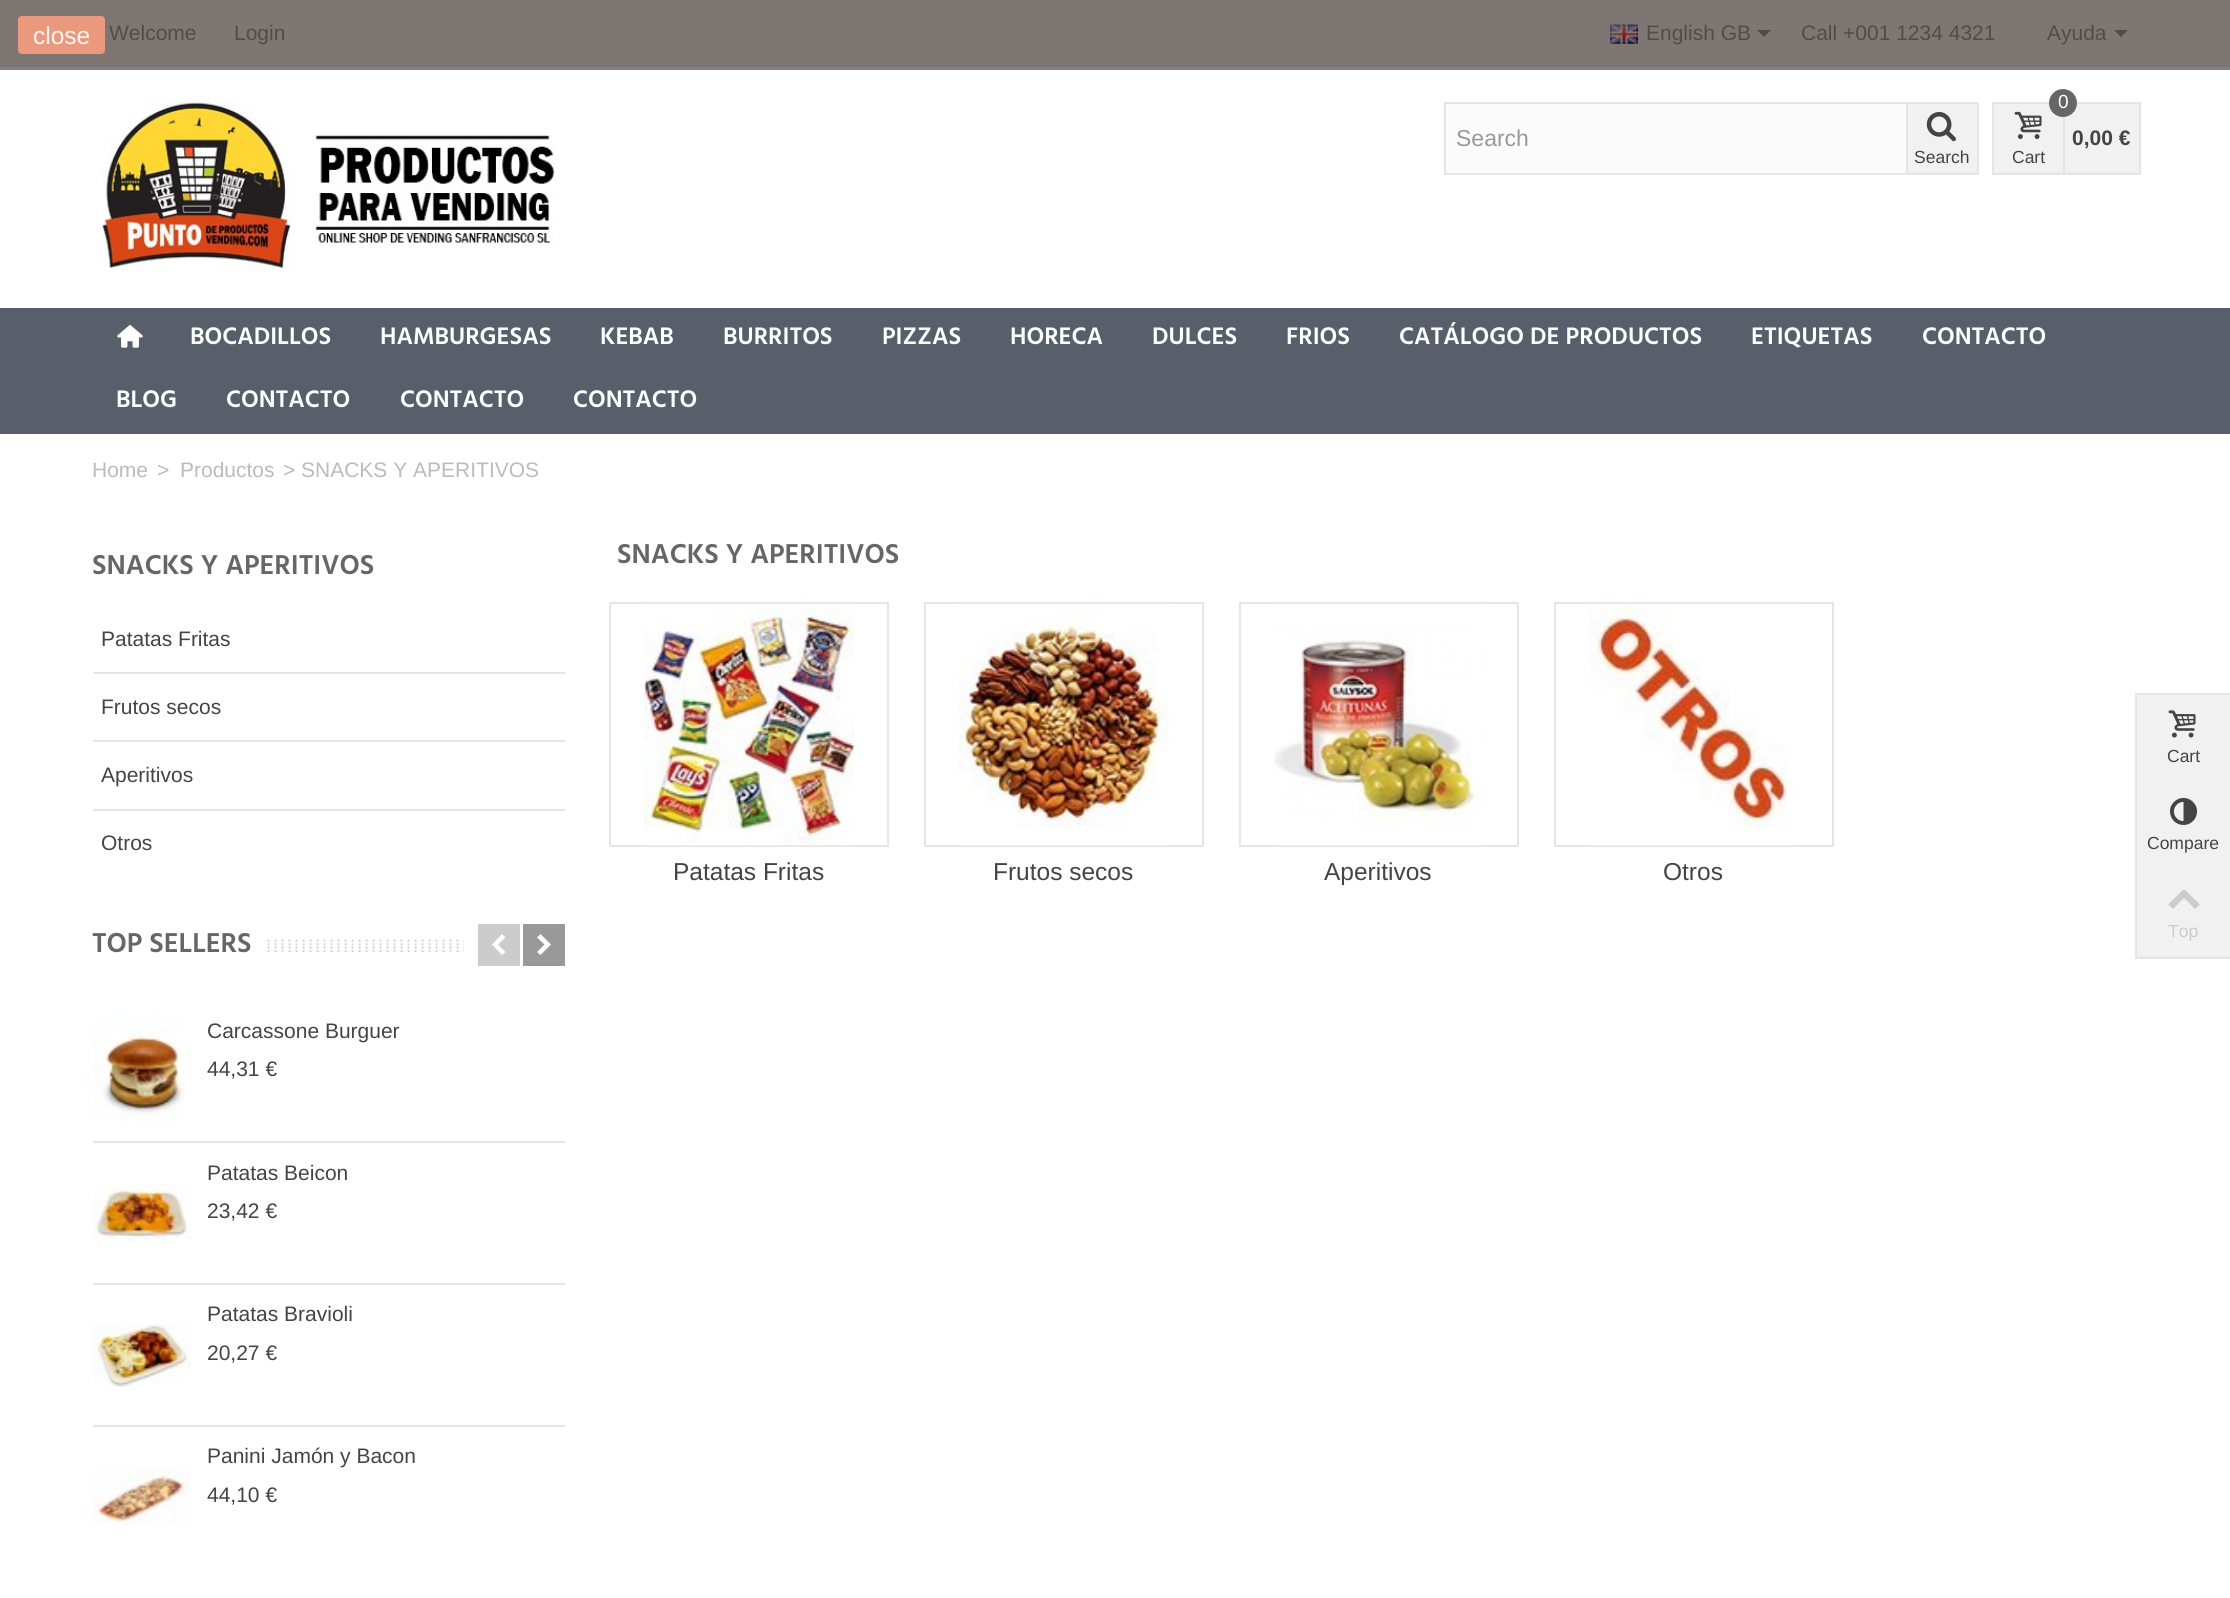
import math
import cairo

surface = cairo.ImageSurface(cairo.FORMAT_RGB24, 2230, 1598)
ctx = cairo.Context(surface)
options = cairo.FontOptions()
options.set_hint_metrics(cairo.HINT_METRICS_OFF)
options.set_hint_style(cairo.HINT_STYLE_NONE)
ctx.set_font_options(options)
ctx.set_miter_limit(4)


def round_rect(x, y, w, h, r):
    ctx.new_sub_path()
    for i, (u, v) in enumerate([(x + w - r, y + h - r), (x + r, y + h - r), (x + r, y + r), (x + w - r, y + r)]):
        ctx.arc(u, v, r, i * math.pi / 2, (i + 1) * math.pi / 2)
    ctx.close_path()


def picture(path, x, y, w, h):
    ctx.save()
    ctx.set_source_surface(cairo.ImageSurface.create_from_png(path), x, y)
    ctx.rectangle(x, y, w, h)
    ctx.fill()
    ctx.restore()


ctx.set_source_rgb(1, 1, 1)
ctx.paint()
ctx.set_source_rgb(0.502, 0.502, 0.502)
ctx.rectangle(0, 67, 2230, 3)
ctx.fill()
ctx.set_source_rgb(0.49, 0.463, 0.447)
ctx.rectangle(0, 0, 2230, 67)
ctx.fill()
ctx.set_source_rgb(0.918, 0.6, 0.494)
round_rect(18, 16, 87, 38, 4)
ctx.fill()
ctx.select_font_face("Liberation Sans")
ctx.set_font_size(24.5)
ctx.set_source_rgb(0.988, 0.965, 0.949)
ctx.move_to(33, 44)
ctx.show_text("close")
ctx.set_font_size(21)
ctx.set_source_rgb(0.322, 0.294, 0.278)
ctx.move_to(109, 40)
ctx.show_text("Welcome")
ctx.move_to(234, 40)
ctx.show_text("Login")
picture("img1.png", 1610, 24, 28, 20)
ctx.move_to(1646, 40)
ctx.show_text("English GB")
ctx.new_path()
ctx.move_to(1757, 30)
ctx.line_to(1771, 30)
ctx.line_to(1764, 37)
ctx.close_path()
ctx.fill()
ctx.move_to(1801, 40)
ctx.show_text("Call +001 1234 4321")
ctx.move_to(2047, 40)
ctx.show_text("Ayuda")
ctx.new_path()
ctx.move_to(2114, 30)
ctx.line_to(2128, 30)
ctx.line_to(2121, 37)
ctx.close_path()
ctx.fill()
picture("img2.png", 95, 101, 459, 169)
ctx.set_source_rgb(0.984, 0.984, 0.984)
ctx.rectangle(1446, 104, 460, 69)
ctx.fill()
ctx.set_source_rgb(0.898, 0.898, 0.898)
ctx.rectangle(1444, 102, 462, 2)
ctx.fill()
ctx.rectangle(1444, 173, 462, 2)
ctx.fill()
ctx.rectangle(1444, 102, 2, 73)
ctx.fill()
ctx.set_font_size(23)
ctx.set_source_rgb(0.6, 0.6, 0.6)
ctx.move_to(1456, 146)
ctx.show_text("Search")
ctx.set_source_rgb(0.945, 0.945, 0.945)
ctx.rectangle(1907, 103, 71, 71)
ctx.fill_preserve()
ctx.set_source_rgb(0.898, 0.898, 0.898)
ctx.stroke()
picture("img3.png", 1926, 112, 30, 30)
ctx.set_font_size(17.5)
ctx.set_source_rgb(0.267, 0.267, 0.267)
ctx.move_to(1914, 163)
ctx.show_text("Search")
ctx.set_source_rgb(0.945, 0.945, 0.945)
ctx.rectangle(1993, 103, 71, 71)
ctx.fill_preserve()
ctx.set_source_rgb(0.898, 0.898, 0.898)
ctx.stroke()
ctx.set_source_rgb(0.945, 0.945, 0.945)
ctx.rectangle(2065, 104, 74, 69)
ctx.fill()
ctx.set_source_rgb(0.898, 0.898, 0.898)
ctx.rectangle(2076, 102, 64, 2)
ctx.fill()
ctx.set_source_rgb(0.4, 0.4, 0.4)
ctx.arc(2063, 103, 14, 0, 2 * math.pi)
ctx.fill()
ctx.set_font_size(19)
ctx.set_source_rgb(1, 1, 1)
ctx.move_to(2058, 108)
ctx.show_text("0")
picture("img4.png", 2014, 111, 28, 28)
ctx.set_font_size(17.5)
ctx.set_source_rgb(0.267, 0.267, 0.267)
ctx.move_to(2012, 163)
ctx.show_text("Cart")
ctx.set_source_rgb(0.898, 0.898, 0.898)
ctx.rectangle(2139, 102, 2, 73)
ctx.fill()
ctx.rectangle(2065, 173, 75, 2)
ctx.fill()
ctx.select_font_face("Liberation Sans", cairo.FONT_SLANT_NORMAL, cairo.FONT_WEIGHT_BOLD)
ctx.set_font_size(21)
ctx.set_source_rgb(0.267, 0.267, 0.267)
ctx.move_to(2072, 145)
ctx.show_text("0,00 €")
ctx.set_source_rgb(0.345, 0.373, 0.416)
ctx.rectangle(0, 308, 2230, 126)
ctx.fill()
picture("img5.png", 117, 324, 26, 24)
ctx.select_font_face("Hind SemiBold")
ctx.set_font_size(24.5)
ctx.set_source_rgb(1, 1, 1)
ctx.move_to(190, 344)
ctx.show_text("BOCADILLOS")
ctx.move_to(380, 344)
ctx.show_text("HAMBURGESAS")
ctx.move_to(600, 344)
ctx.show_text("KEBAB")
ctx.move_to(723, 344)
ctx.show_text("BURRITOS")
ctx.move_to(882, 344)
ctx.show_text("PIZZAS")
ctx.move_to(1010, 344)
ctx.show_text("HORECA")
ctx.move_to(1152, 344)
ctx.show_text("DULCES")
ctx.move_to(1286, 344)
ctx.show_text("FRIOS")
ctx.move_to(1399, 344)
ctx.show_text("CATÁLOGO DE PRODUCTOS")
ctx.move_to(1751, 344)
ctx.show_text("ETIQUETAS")
ctx.move_to(1922, 344)
ctx.show_text("CONTACTO")
ctx.move_to(116, 407)
ctx.show_text("BLOG")
ctx.move_to(226, 407)
ctx.show_text("CONTACTO")
ctx.move_to(400, 407)
ctx.show_text("CONTACTO")
ctx.move_to(573, 407)
ctx.show_text("CONTACTO")
ctx.select_font_face("Liberation Sans")
ctx.set_font_size(21)
ctx.set_source_rgb(0.733, 0.733, 0.733)
ctx.move_to(92, 477)
ctx.show_text("Home")
ctx.move_to(157, 477)
ctx.show_text(">")
ctx.move_to(180, 477)
ctx.show_text("Productos")
ctx.move_to(283, 477)
ctx.show_text(">")
ctx.move_to(301, 477)
ctx.show_text("SNACKS Y APERITIVOS")
ctx.select_font_face("Hind SemiBold")
ctx.set_font_size(28)
ctx.set_source_rgb(0.4, 0.4, 0.4)
ctx.move_to(92, 574)
ctx.show_text("SNACKS Y APERITIVOS")
ctx.set_source_rgb(0.898, 0.898, 0.898)
ctx.rectangle(93, 672, 472, 2)
ctx.fill()
ctx.select_font_face("Liberation Sans")
ctx.set_font_size(21)
ctx.set_source_rgb(0.267, 0.267, 0.267)
ctx.move_to(101, 646)
ctx.show_text("Patatas Fritas")
ctx.set_source_rgb(0.898, 0.898, 0.898)
ctx.rectangle(93, 740, 472, 2)
ctx.fill()
ctx.set_source_rgb(0.267, 0.267, 0.267)
ctx.move_to(101, 714)
ctx.show_text("Frutos secos")
ctx.set_source_rgb(0.898, 0.898, 0.898)
ctx.rectangle(93, 809, 472, 2)
ctx.fill()
ctx.set_source_rgb(0.267, 0.267, 0.267)
ctx.move_to(101, 782)
ctx.show_text("Aperitivos")
ctx.move_to(101, 850)
ctx.show_text("Otros")
picture("img6.png", 92, 939, 372, 13)
ctx.set_source_rgb(1, 1, 1)
ctx.rectangle(93, 939, 170, 13)
ctx.fill()
ctx.select_font_face("Hind SemiBold")
ctx.set_font_size(28)
ctx.set_source_rgb(0.4, 0.4, 0.4)
ctx.move_to(92, 952)
ctx.show_text("TOP SELLERS")
ctx.set_source_rgb(0.8, 0.8, 0.8)
ctx.rectangle(478, 924, 42, 42)
ctx.fill()
ctx.set_source_rgb(1, 1, 1)
ctx.new_path()
ctx.move_to(492, 944.5)
ctx.line_to(502, 934)
ctx.line_to(505.5, 937.5)
ctx.line_to(498, 944.5)
ctx.line_to(505.5, 952)
ctx.line_to(502, 955)
ctx.close_path()
ctx.fill()
ctx.set_source_rgb(0.6, 0.6, 0.6)
ctx.rectangle(523, 924, 42, 42)
ctx.fill()
ctx.set_source_rgb(1, 1, 1)
ctx.new_path()
ctx.move_to(537, 952)
ctx.line_to(544.5, 944.5)
ctx.line_to(537, 937.5)
ctx.line_to(540.5, 934)
ctx.line_to(551, 944.5)
ctx.line_to(540.5, 955)
ctx.close_path()
ctx.fill()
ctx.set_source_rgb(0.898, 0.898, 0.898)
ctx.rectangle(93, 1141, 472, 2)
ctx.fill()
picture("img7.png", 93, 1015, 91, 112)
ctx.select_font_face("Liberation Sans")
ctx.set_font_size(21)
ctx.set_source_rgb(0.267, 0.267, 0.267)
ctx.move_to(207, 1038)
ctx.show_text("Carcassone Burguer")
ctx.move_to(207, 1076)
ctx.show_text("44,31 €")
ctx.set_source_rgb(0.898, 0.898, 0.898)
ctx.rectangle(93, 1283, 472, 2)
ctx.fill()
picture("img8.png", 93, 1184, 98, 58)
ctx.set_source_rgb(0.267, 0.267, 0.267)
ctx.move_to(207, 1180)
ctx.show_text("Patatas Beicon")
ctx.move_to(207, 1218)
ctx.show_text("23,42 €")
ctx.set_source_rgb(0.898, 0.898, 0.898)
ctx.rectangle(93, 1425, 472, 2)
ctx.fill()
picture("img9.png", 93, 1324, 98, 67)
ctx.set_source_rgb(0.267, 0.267, 0.267)
ctx.move_to(207, 1321)
ctx.show_text("Patatas Bravioli")
ctx.move_to(207, 1360)
ctx.show_text("20,27 €")
picture("img10.png", 93, 1468, 98, 57)
ctx.move_to(207, 1463)
ctx.show_text("Panini Jamón y Bacon")
ctx.move_to(207, 1502)
ctx.show_text("44,10 €")
ctx.select_font_face("Hind SemiBold")
ctx.set_font_size(28)
ctx.set_source_rgb(0.4, 0.4, 0.4)
ctx.move_to(617, 563)
ctx.show_text("SNACKS Y APERITIVOS")
ctx.rectangle(610, 603, 278, 243)
ctx.set_source_rgb(0.898, 0.898, 0.898)
ctx.stroke()
picture("img11.png", 644, 603, 210, 243)
ctx.select_font_face("Liberation Sans")
ctx.set_font_size(24.5)
ctx.set_source_rgb(0.267, 0.267, 0.267)
ctx.move_to(673, 880)
ctx.show_text("Patatas Fritas")
ctx.rectangle(925, 603, 278, 243)
ctx.set_source_rgb(0.898, 0.898, 0.898)
ctx.stroke()
picture("img12.png", 959, 603, 210, 243)
ctx.set_source_rgb(0.267, 0.267, 0.267)
ctx.move_to(993, 880)
ctx.show_text("Frutos secos")
ctx.rectangle(1240, 603, 278, 243)
ctx.set_source_rgb(0.898, 0.898, 0.898)
ctx.stroke()
picture("img13.png", 1274, 603, 210, 243)
ctx.set_source_rgb(0.267, 0.267, 0.267)
ctx.move_to(1324, 880)
ctx.show_text("Aperitivos")
ctx.rectangle(1555, 603, 278, 243)
ctx.set_source_rgb(0.898, 0.898, 0.898)
ctx.stroke()
picture("img14.png", 1589, 603, 210, 243)
ctx.set_source_rgb(0.267, 0.267, 0.267)
ctx.move_to(1663, 880)
ctx.show_text("Otros")
ctx.set_source_rgb(0.945, 0.945, 0.945)
ctx.rectangle(2137, 695, 93, 262)
ctx.fill()
ctx.set_source_rgb(0.898, 0.898, 0.898)
ctx.rectangle(2135, 693, 95, 2)
ctx.fill()
ctx.rectangle(2135, 957, 95, 2)
ctx.fill()
ctx.rectangle(2135, 695, 2, 262)
ctx.fill()
picture("img15.png", 2168, 710, 28, 28)
ctx.set_font_size(17.5)
ctx.set_source_rgb(0.267, 0.267, 0.267)
ctx.move_to(2167, 762)
ctx.show_text("Cart")
picture("img16.png", 2170, 798, 27, 27)
ctx.move_to(2147, 849)
ctx.show_text("Compare")
ctx.set_source_rgb(0.8, 0.8, 0.8)
ctx.new_path()
ctx.move_to(2168, 904.5)
ctx.line_to(2184, 889)
ctx.line_to(2200, 904.5)
ctx.line_to(2195, 909)
ctx.line_to(2184, 898)
ctx.line_to(2173, 909)
ctx.close_path()
ctx.fill()
ctx.move_to(2168, 937)
ctx.show_text("Top")
surface.write_to_png("page.png")
